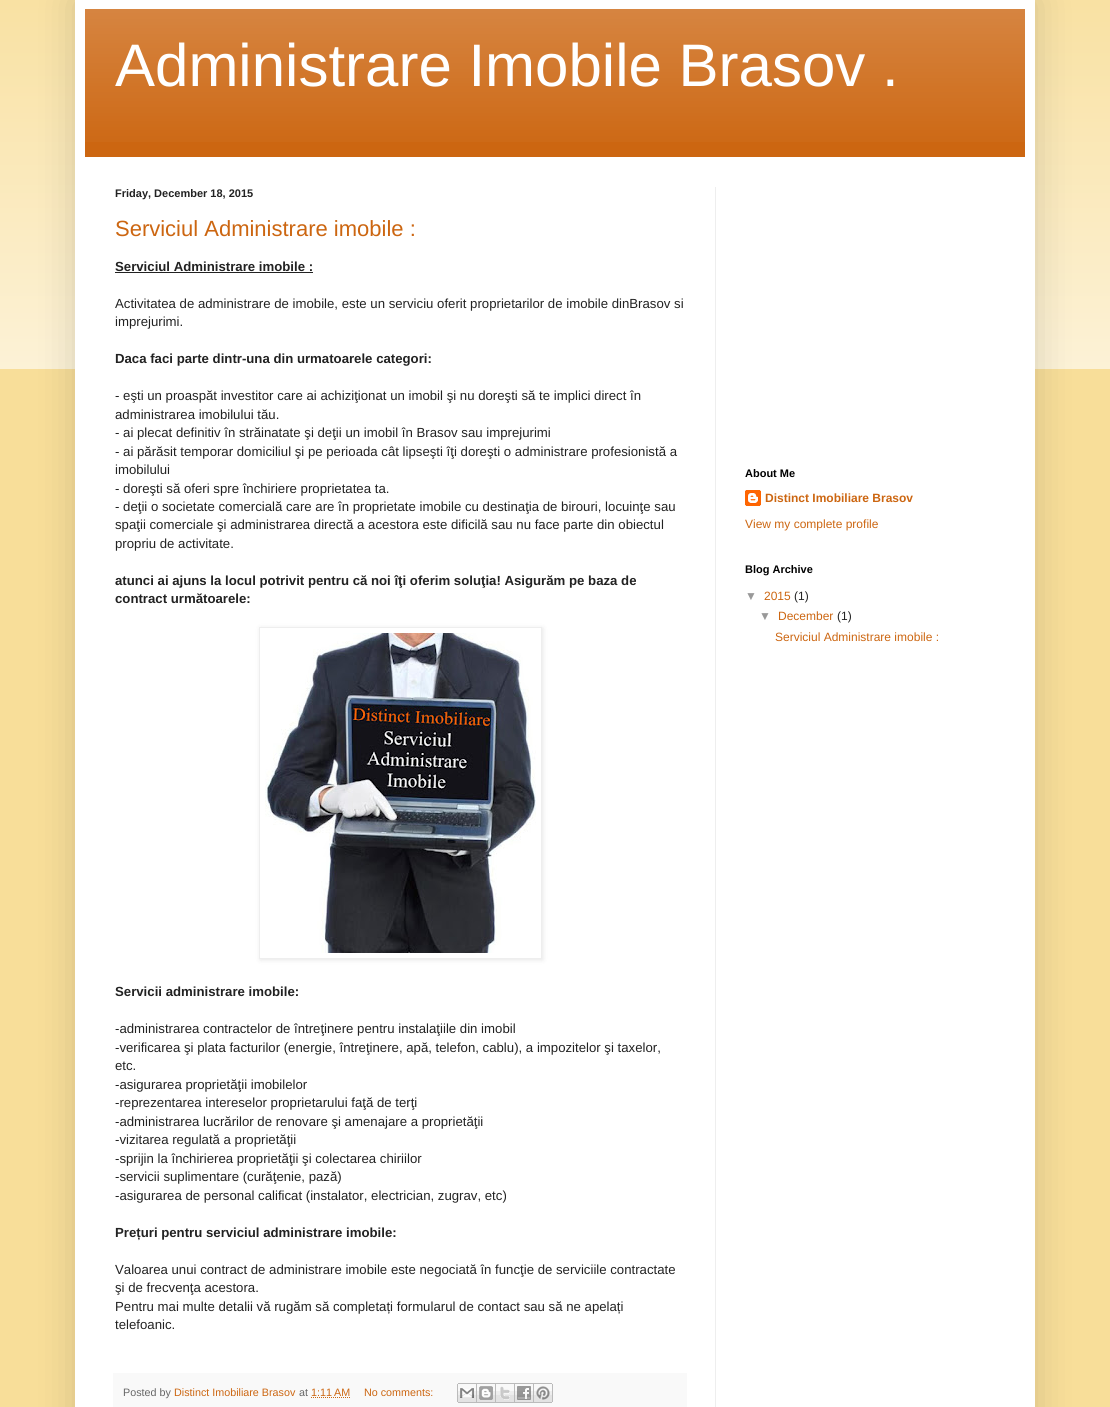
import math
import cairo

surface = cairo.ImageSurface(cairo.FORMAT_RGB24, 1110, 1407)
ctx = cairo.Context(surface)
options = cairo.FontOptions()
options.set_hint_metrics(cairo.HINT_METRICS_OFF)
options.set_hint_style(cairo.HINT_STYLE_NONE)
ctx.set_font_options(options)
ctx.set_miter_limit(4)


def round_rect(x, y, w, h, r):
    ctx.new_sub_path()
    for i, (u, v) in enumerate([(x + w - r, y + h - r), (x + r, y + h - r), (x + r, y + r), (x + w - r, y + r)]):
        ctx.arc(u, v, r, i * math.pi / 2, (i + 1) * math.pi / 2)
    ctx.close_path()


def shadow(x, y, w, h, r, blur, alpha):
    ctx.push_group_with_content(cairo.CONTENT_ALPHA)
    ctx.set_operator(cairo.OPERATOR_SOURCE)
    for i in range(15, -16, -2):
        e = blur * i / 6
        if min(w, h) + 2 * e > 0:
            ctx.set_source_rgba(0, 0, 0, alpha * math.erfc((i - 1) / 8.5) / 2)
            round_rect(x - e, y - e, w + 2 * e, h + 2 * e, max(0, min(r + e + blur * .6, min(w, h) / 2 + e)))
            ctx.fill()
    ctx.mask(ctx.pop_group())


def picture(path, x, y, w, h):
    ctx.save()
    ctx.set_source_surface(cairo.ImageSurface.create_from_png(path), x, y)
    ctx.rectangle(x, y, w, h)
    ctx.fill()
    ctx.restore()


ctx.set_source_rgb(0.969, 0.871, 0.6)
ctx.paint()
picture("img1.png", 0, 0, 1110, 369)
ctx.set_source_rgb(0, 0, 0)
shadow(75, -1, 960, 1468, 0, 20, 0.15)
ctx.set_source_rgb(1, 1, 1)
ctx.rectangle(75, 0, 960, 1407)
ctx.fill()
ctx.set_source_rgb(0.8, 0.4, 0.067)
ctx.rectangle(85, 9, 940, 148)
ctx.fill()
picture("img2.png", 85, 9, 940, 133)
ctx.select_font_face("Liberation Sans")
ctx.set_font_size(60)
ctx.set_source_rgb(1, 1, 1)
ctx.move_to(115, 86)
ctx.show_text("Administrare Imobile Brasov .")
ctx.set_source_rgb(0.933, 0.933, 0.933)
ctx.rectangle(715, 187, 1, 1220)
ctx.fill()
ctx.select_font_face("Liberation Sans", cairo.FONT_SLANT_NORMAL, cairo.FONT_WEIGHT_BOLD)
ctx.set_font_size(11)
ctx.set_source_rgb(0.133, 0.133, 0.133)
ctx.move_to(115, 197)
ctx.show_text("Friday, December 18, 2015")
ctx.select_font_face("Liberation Sans")
ctx.set_font_size(22)
ctx.set_source_rgb(0.8, 0.4, 0.067)
ctx.move_to(115, 236)
ctx.show_text("Serviciul Administrare imobile :")
ctx.select_font_face("Liberation Sans", cairo.FONT_SLANT_NORMAL, cairo.FONT_WEIGHT_BOLD)
ctx.set_font_size(13.2)
ctx.set_source_rgb(0.133, 0.133, 0.133)
ctx.move_to(115, 271)
ctx.show_text("Serviciul Administrare imobile :")
ctx.rectangle(115, 272, 198, 1)
ctx.fill()
ctx.select_font_face("Liberation Sans")
ctx.move_to(115, 308)
ctx.show_text("Activitatea de administrare de imobile, este un serviciu oferit proprietarilor de imobile dinBrasov si")
ctx.move_to(115, 326)
ctx.show_text("imprejurimi.")
ctx.select_font_face("Liberation Sans", cairo.FONT_SLANT_NORMAL, cairo.FONT_WEIGHT_BOLD)
ctx.move_to(115, 363)
ctx.show_text("Daca faci parte dintr-una din urmatoarele categori:")
ctx.select_font_face("Liberation Sans")
ctx.move_to(115, 400)
ctx.show_text("- eşti un proaspăt investitor care ai achiziţionat un imobil şi nu doreşti să te implici direct în")
ctx.move_to(115, 419)
ctx.show_text("administrarea imobilului tău.")
ctx.move_to(115, 437)
ctx.show_text("- ai plecat definitiv în străinatate şi deţii un imobil în Brasov sau imprejurimi")
ctx.move_to(115, 456)
ctx.show_text("- ai părăsit temporar domiciliul şi pe perioada cât lipseşti îţi doreşti o administrare profesionistă a")
ctx.move_to(115, 474)
ctx.show_text("imobilului")
ctx.move_to(115, 493)
ctx.show_text("- doreşti să oferi spre închiriere proprietatea ta.")
ctx.move_to(115, 511)
ctx.show_text("- deţii o societate comercială care are în proprietate imobile cu destinaţia de birouri, locuinţe sau")
ctx.move_to(115, 529)
ctx.show_text("spaţii comerciale şi administrarea directă a acestora este dificilă sau nu face parte din obiectul")
ctx.move_to(115, 548)
ctx.show_text("propriu de activitate.")
ctx.select_font_face("Liberation Sans", cairo.FONT_SLANT_NORMAL, cairo.FONT_WEIGHT_BOLD)
ctx.move_to(115, 585)
ctx.show_text("atunci ai ajuns la locul potrivit pentru că noi îţi oferim soluţia! Asigurăm pe baza de")
ctx.move_to(115, 603)
ctx.show_text("contract următoarele:")
ctx.save()
ctx.set_fill_rule(cairo.FILL_RULE_EVEN_ODD)
ctx.new_path()
ctx.move_to(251, 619)
ctx.line_to(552, 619)
ctx.line_to(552, 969)
ctx.line_to(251, 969)
ctx.close_path()
ctx.move_to(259, 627)
ctx.line_to(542, 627)
ctx.line_to(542, 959)
ctx.line_to(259, 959)
ctx.close_path()
ctx.clip()
ctx.set_source_rgb(0, 0, 0)
shadow(260, 628, 283, 332, 0, 2.5, 0.1)
ctx.restore()
ctx.rectangle(259.5, 627.5, 282, 331)
ctx.set_source_rgb(0.933, 0.933, 0.933)
ctx.set_line_width(1)
ctx.stroke()
picture("img3.png", 265, 633, 271, 320)
ctx.set_source_rgb(0.133, 0.133, 0.133)
ctx.move_to(115, 996)
ctx.show_text("Servicii administrare imobile:")
ctx.select_font_face("Liberation Sans")
ctx.move_to(115, 1033)
ctx.show_text("-administrarea contractelor de întreţinere pentru instalaţiile din imobil")
ctx.move_to(115, 1052)
ctx.show_text("-verificarea şi plata facturilor (energie, întreţinere, apă, telefon, cablu), a impozitelor şi taxelor,")
ctx.move_to(115, 1070)
ctx.show_text("etc.")
ctx.move_to(115, 1089)
ctx.show_text("-asigurarea proprietăţii imobilelor")
ctx.move_to(115, 1107)
ctx.show_text("-reprezentarea intereselor proprietarului faţă de terţi")
ctx.move_to(115, 1126)
ctx.show_text("-administrarea lucrărilor de renovare şi amenajare a proprietăţii")
ctx.move_to(115, 1144)
ctx.show_text("-vizitarea regulată a proprietăţii")
ctx.move_to(115, 1163)
ctx.show_text("-sprijin la închirierea proprietăţii şi colectarea chiriilor")
ctx.move_to(115, 1181)
ctx.show_text("-servicii suplimentare (curăţenie, pază)")
ctx.move_to(115, 1200)
ctx.show_text("-asigurarea de personal calificat (instalator, electrician, zugrav, etc)")
ctx.select_font_face("Liberation Sans", cairo.FONT_SLANT_NORMAL, cairo.FONT_WEIGHT_BOLD)
ctx.move_to(115, 1237)
ctx.show_text("Prețuri pentru serviciul administrare imobile:")
ctx.select_font_face("Liberation Sans")
ctx.move_to(115, 1274)
ctx.show_text("Valoarea unui contract de administrare imobile este negociată în funcţie de serviciile contractate")
ctx.move_to(115, 1292)
ctx.show_text("şi de frecvenţa acestora.")
ctx.move_to(115, 1311)
ctx.show_text("Pentru mai multe detalii vă rugăm să completați formularul de contact sau să ne apelați")
ctx.move_to(115, 1329)
ctx.show_text("telefoanic.")
ctx.set_source_rgb(0.976, 0.976, 0.976)
ctx.rectangle(113, 1373, 574, 34)
ctx.fill()
ctx.set_font_size(10.75)
ctx.set_source_rgb(0.4, 0.4, 0.4)
ctx.move_to(123, 1396)
ctx.show_text("Posted by")
ctx.set_source_rgb(0.8, 0.4, 0.067)
ctx.move_to(174, 1396)
ctx.show_text("Distinct Imobiliare Brasov")
ctx.set_source_rgb(0.4, 0.4, 0.4)
ctx.move_to(299, 1396)
ctx.show_text("at")
ctx.set_source_rgb(0.8, 0.4, 0.067)
ctx.move_to(311, 1396)
ctx.show_text("1:11 AM")
ctx.new_path()
ctx.move_to(311, 1397.5)
ctx.line_to(350, 1397.5)
ctx.set_dash([1, 1])
ctx.stroke()
ctx.move_to(364, 1396)
ctx.show_text("No comments:")
picture("img4.png", 457, 1383, 20, 20)
picture("img5.png", 477, 1383, 19, 20)
picture("img6.png", 496, 1383, 19, 20)
picture("img7.png", 515, 1383, 19, 20)
picture("img8.png", 534, 1383, 19, 20)
ctx.select_font_face("Liberation Sans", cairo.FONT_SLANT_NORMAL, cairo.FONT_WEIGHT_BOLD)
ctx.set_font_size(11)
ctx.set_source_rgb(0, 0, 0)
ctx.move_to(745, 477)
ctx.show_text("About Me")
picture("img9.png", 745, 490, 16, 16)
ctx.set_font_size(12)
ctx.set_source_rgb(0.8, 0.4, 0.067)
ctx.move_to(765, 502)
ctx.show_text("Distinct Imobiliare Brasov")
ctx.select_font_face("Liberation Sans")
ctx.move_to(745, 528)
ctx.show_text("View my complete profile")
ctx.select_font_face("Liberation Sans", cairo.FONT_SLANT_NORMAL, cairo.FONT_WEIGHT_BOLD)
ctx.set_font_size(11)
ctx.set_source_rgb(0, 0, 0)
ctx.move_to(745, 573)
ctx.show_text("Blog Archive")
ctx.select_font_face("Liberation Sans")
ctx.set_font_size(12)
ctx.set_source_rgb(0.6, 0.6, 0.6)
ctx.move_to(745, 600)
ctx.show_text("▼")
ctx.set_source_rgb(0.8, 0.4, 0.067)
ctx.move_to(764, 600)
ctx.show_text("2015")
ctx.set_source_rgb(0.133, 0.133, 0.133)
ctx.move_to(794, 600)
ctx.show_text("(1)")
ctx.set_source_rgb(0.6, 0.6, 0.6)
ctx.move_to(759, 620)
ctx.show_text("▼")
ctx.set_source_rgb(0.8, 0.4, 0.067)
ctx.move_to(778, 620)
ctx.show_text("December")
ctx.set_source_rgb(0.133, 0.133, 0.133)
ctx.move_to(837, 620)
ctx.show_text("(1)")
ctx.set_source_rgb(0.8, 0.4, 0.067)
ctx.move_to(775, 641)
ctx.show_text("Serviciul Administrare imobile :")
surface.write_to_png("page.png")
